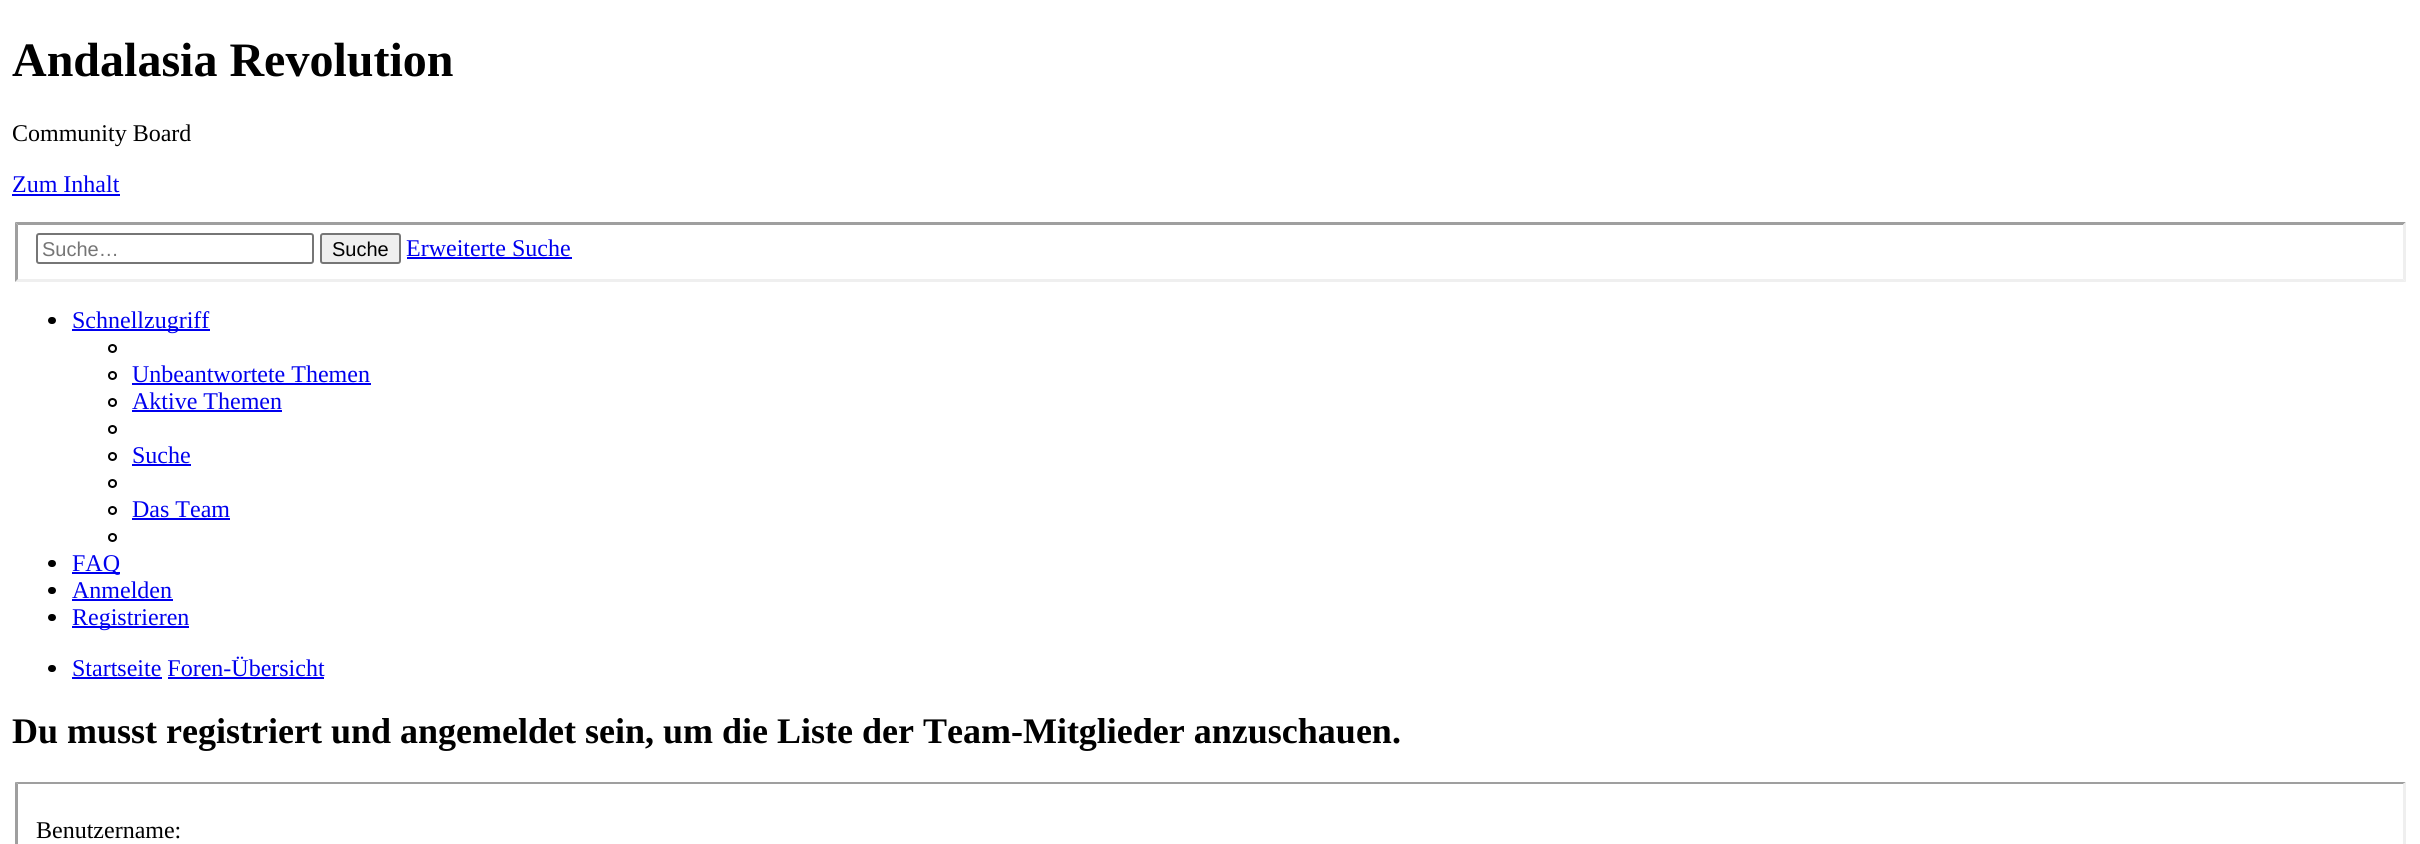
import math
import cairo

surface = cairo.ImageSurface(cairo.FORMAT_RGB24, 2420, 844)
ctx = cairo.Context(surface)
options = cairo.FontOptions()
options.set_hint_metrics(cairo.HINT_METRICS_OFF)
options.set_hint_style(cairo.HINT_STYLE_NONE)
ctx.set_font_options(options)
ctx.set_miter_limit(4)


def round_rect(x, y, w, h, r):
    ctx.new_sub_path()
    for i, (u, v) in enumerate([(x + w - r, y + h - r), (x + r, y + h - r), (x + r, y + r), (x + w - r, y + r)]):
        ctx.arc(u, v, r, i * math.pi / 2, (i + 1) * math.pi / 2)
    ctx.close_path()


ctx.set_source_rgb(1, 1, 1)
ctx.paint()
ctx.select_font_face("Liberation Serif", cairo.FONT_SLANT_NORMAL, cairo.FONT_WEIGHT_BOLD)
ctx.set_font_size(48)
ctx.set_source_rgb(0, 0, 0)
ctx.move_to(12, 76)
ctx.show_text("Andalasia Revolution")
ctx.select_font_face("Liberation Serif")
ctx.set_font_size(24)
ctx.move_to(12, 141)
ctx.show_text("Community Board")
ctx.set_source_rgb(0, 0, 0.933)
ctx.move_to(12, 192)
ctx.show_text("Zum Inhalt")
ctx.rectangle(12, 194, 108, 2)
ctx.fill()
ctx.set_source_rgb(0.624, 0.624, 0.624)
ctx.new_path()
ctx.move_to(15, 222)
ctx.line_to(2406, 222)
ctx.line_to(2403, 225)
ctx.line_to(18, 225)
ctx.close_path()
ctx.fill()
ctx.set_source_rgb(0.937, 0.937, 0.937)
ctx.new_path()
ctx.move_to(2406, 222)
ctx.line_to(2406, 282)
ctx.line_to(2403, 279)
ctx.line_to(2403, 225)
ctx.close_path()
ctx.fill()
ctx.new_path()
ctx.move_to(2406, 282)
ctx.line_to(15, 282)
ctx.line_to(18, 279)
ctx.line_to(2403, 279)
ctx.close_path()
ctx.fill()
ctx.set_source_rgb(0.624, 0.624, 0.624)
ctx.new_path()
ctx.move_to(15, 282)
ctx.line_to(15, 222)
ctx.line_to(18, 225)
ctx.line_to(18, 279)
ctx.close_path()
ctx.fill()
round_rect(37, 234, 276, 29, 2)
ctx.set_source_rgb(0.463, 0.463, 0.463)
ctx.stroke()
ctx.select_font_face("Liberation Sans")
ctx.set_font_size(20)
ctx.set_source_rgb(0.459, 0.459, 0.459)
ctx.move_to(42, 256)
ctx.show_text("Suche…")
ctx.set_source_rgb(0.937, 0.937, 0.937)
round_rect(321, 234, 79, 29, 2)
ctx.fill_preserve()
ctx.set_source_rgb(0.463, 0.463, 0.463)
ctx.stroke()
ctx.set_source_rgb(0, 0, 0)
ctx.move_to(332, 256)
ctx.show_text("Suche")
ctx.select_font_face("Liberation Serif")
ctx.set_font_size(24)
ctx.set_source_rgb(0, 0, 0.933)
ctx.move_to(406, 256)
ctx.show_text("Erweiterte Suche")
ctx.rectangle(407, 257, 165, 2)
ctx.fill()
ctx.set_source_rgb(0, 0, 0)
round_rect(48, 317, 8, 7, 3.5)
ctx.fill()
ctx.set_source_rgb(0, 0, 0.933)
ctx.rectangle(72, 329, 138, 2)
ctx.fill()
ctx.move_to(72, 328)
ctx.show_text("Schnellzugriff")
ctx.new_path()
ctx.arc(112.5, 348.5, 3.5, 0, 2 * math.pi)
ctx.set_source_rgb(0, 0, 0)
ctx.stroke()
ctx.arc(112.5, 375.5, 3.5, 0, 2 * math.pi)
ctx.stroke()
ctx.set_source_rgb(0, 0, 0.933)
ctx.move_to(132, 382)
ctx.show_text("Unbeantwortete Themen")
ctx.rectangle(132, 383, 239, 2)
ctx.fill()
ctx.arc(112.5, 402.5, 3.5, 0, 2 * math.pi)
ctx.set_source_rgb(0, 0, 0)
ctx.stroke()
ctx.set_source_rgb(0, 0, 0.933)
ctx.move_to(132, 409)
ctx.show_text("Aktive Themen")
ctx.rectangle(132, 410, 150, 2)
ctx.fill()
ctx.arc(112.5, 429.5, 3.5, 0, 2 * math.pi)
ctx.set_source_rgb(0, 0, 0)
ctx.stroke()
ctx.arc(112.5, 456.5, 3.5, 0, 2 * math.pi)
ctx.stroke()
ctx.set_source_rgb(0, 0, 0.933)
ctx.move_to(132, 463)
ctx.show_text("Suche")
ctx.rectangle(132, 464, 59, 2)
ctx.fill()
ctx.arc(112.5, 483.5, 3.5, 0, 2 * math.pi)
ctx.set_source_rgb(0, 0, 0)
ctx.stroke()
ctx.arc(112.5, 510.5, 3.5, 0, 2 * math.pi)
ctx.stroke()
ctx.set_source_rgb(0, 0, 0.933)
ctx.move_to(132, 517)
ctx.show_text("Das Team")
ctx.rectangle(132, 518, 98, 2)
ctx.fill()
ctx.arc(112.5, 537.5, 3.5, 0, 2 * math.pi)
ctx.set_source_rgb(0, 0, 0)
ctx.stroke()
round_rect(48, 560, 8, 7, 3.5)
ctx.fill()
ctx.set_source_rgb(0, 0, 0.933)
ctx.rectangle(72, 572, 48, 2)
ctx.fill()
ctx.move_to(72, 571)
ctx.show_text("FAQ")
ctx.set_source_rgb(0, 0, 0)
round_rect(48, 587, 8, 7, 3.5)
ctx.fill()
ctx.set_source_rgb(0, 0, 0.933)
ctx.move_to(72, 598)
ctx.show_text("Anmelden")
ctx.rectangle(72, 599, 101, 2)
ctx.fill()
ctx.set_source_rgb(0, 0, 0)
round_rect(48, 614, 8, 7, 3.5)
ctx.fill()
ctx.set_source_rgb(0, 0, 0.933)
ctx.rectangle(72, 626, 117, 2)
ctx.fill()
ctx.move_to(72, 625)
ctx.show_text("Registrieren")
ctx.set_source_rgb(0, 0, 0)
round_rect(48, 665, 8, 7, 3.5)
ctx.fill()
ctx.set_source_rgb(0, 0, 0.933)
ctx.move_to(72, 676)
ctx.show_text("Startseite Foren-Übersicht")
ctx.rectangle(72, 677, 90, 2)
ctx.fill()
ctx.rectangle(168, 677, 156, 2)
ctx.fill()
ctx.select_font_face("Liberation Serif", cairo.FONT_SLANT_NORMAL, cairo.FONT_WEIGHT_BOLD)
ctx.set_font_size(36)
ctx.set_source_rgb(0, 0, 0)
ctx.move_to(12, 743)
ctx.show_text("Du musst registriert und angemeldet sein, um die Liste der Team-Mitglieder anzuschauen.")
ctx.set_source_rgb(0.624, 0.624, 0.624)
ctx.new_path()
ctx.move_to(15, 782)
ctx.line_to(2406, 782)
ctx.line_to(2403, 784)
ctx.line_to(18, 784)
ctx.close_path()
ctx.fill()
ctx.set_source_rgb(0.937, 0.937, 0.937)
ctx.new_path()
ctx.move_to(2406, 782)
ctx.line_to(2406, 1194)
ctx.line_to(2403, 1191)
ctx.line_to(2403, 784)
ctx.close_path()
ctx.fill()
ctx.set_source_rgb(0.624, 0.624, 0.624)
ctx.new_path()
ctx.move_to(15, 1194)
ctx.line_to(15, 782)
ctx.line_to(18, 784)
ctx.line_to(18, 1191)
ctx.close_path()
ctx.fill()
ctx.select_font_face("Liberation Serif")
ctx.set_font_size(24)
ctx.set_source_rgb(0, 0, 0)
ctx.move_to(36, 838)
ctx.show_text("Benutzername:")
surface.write_to_png("page.png")
